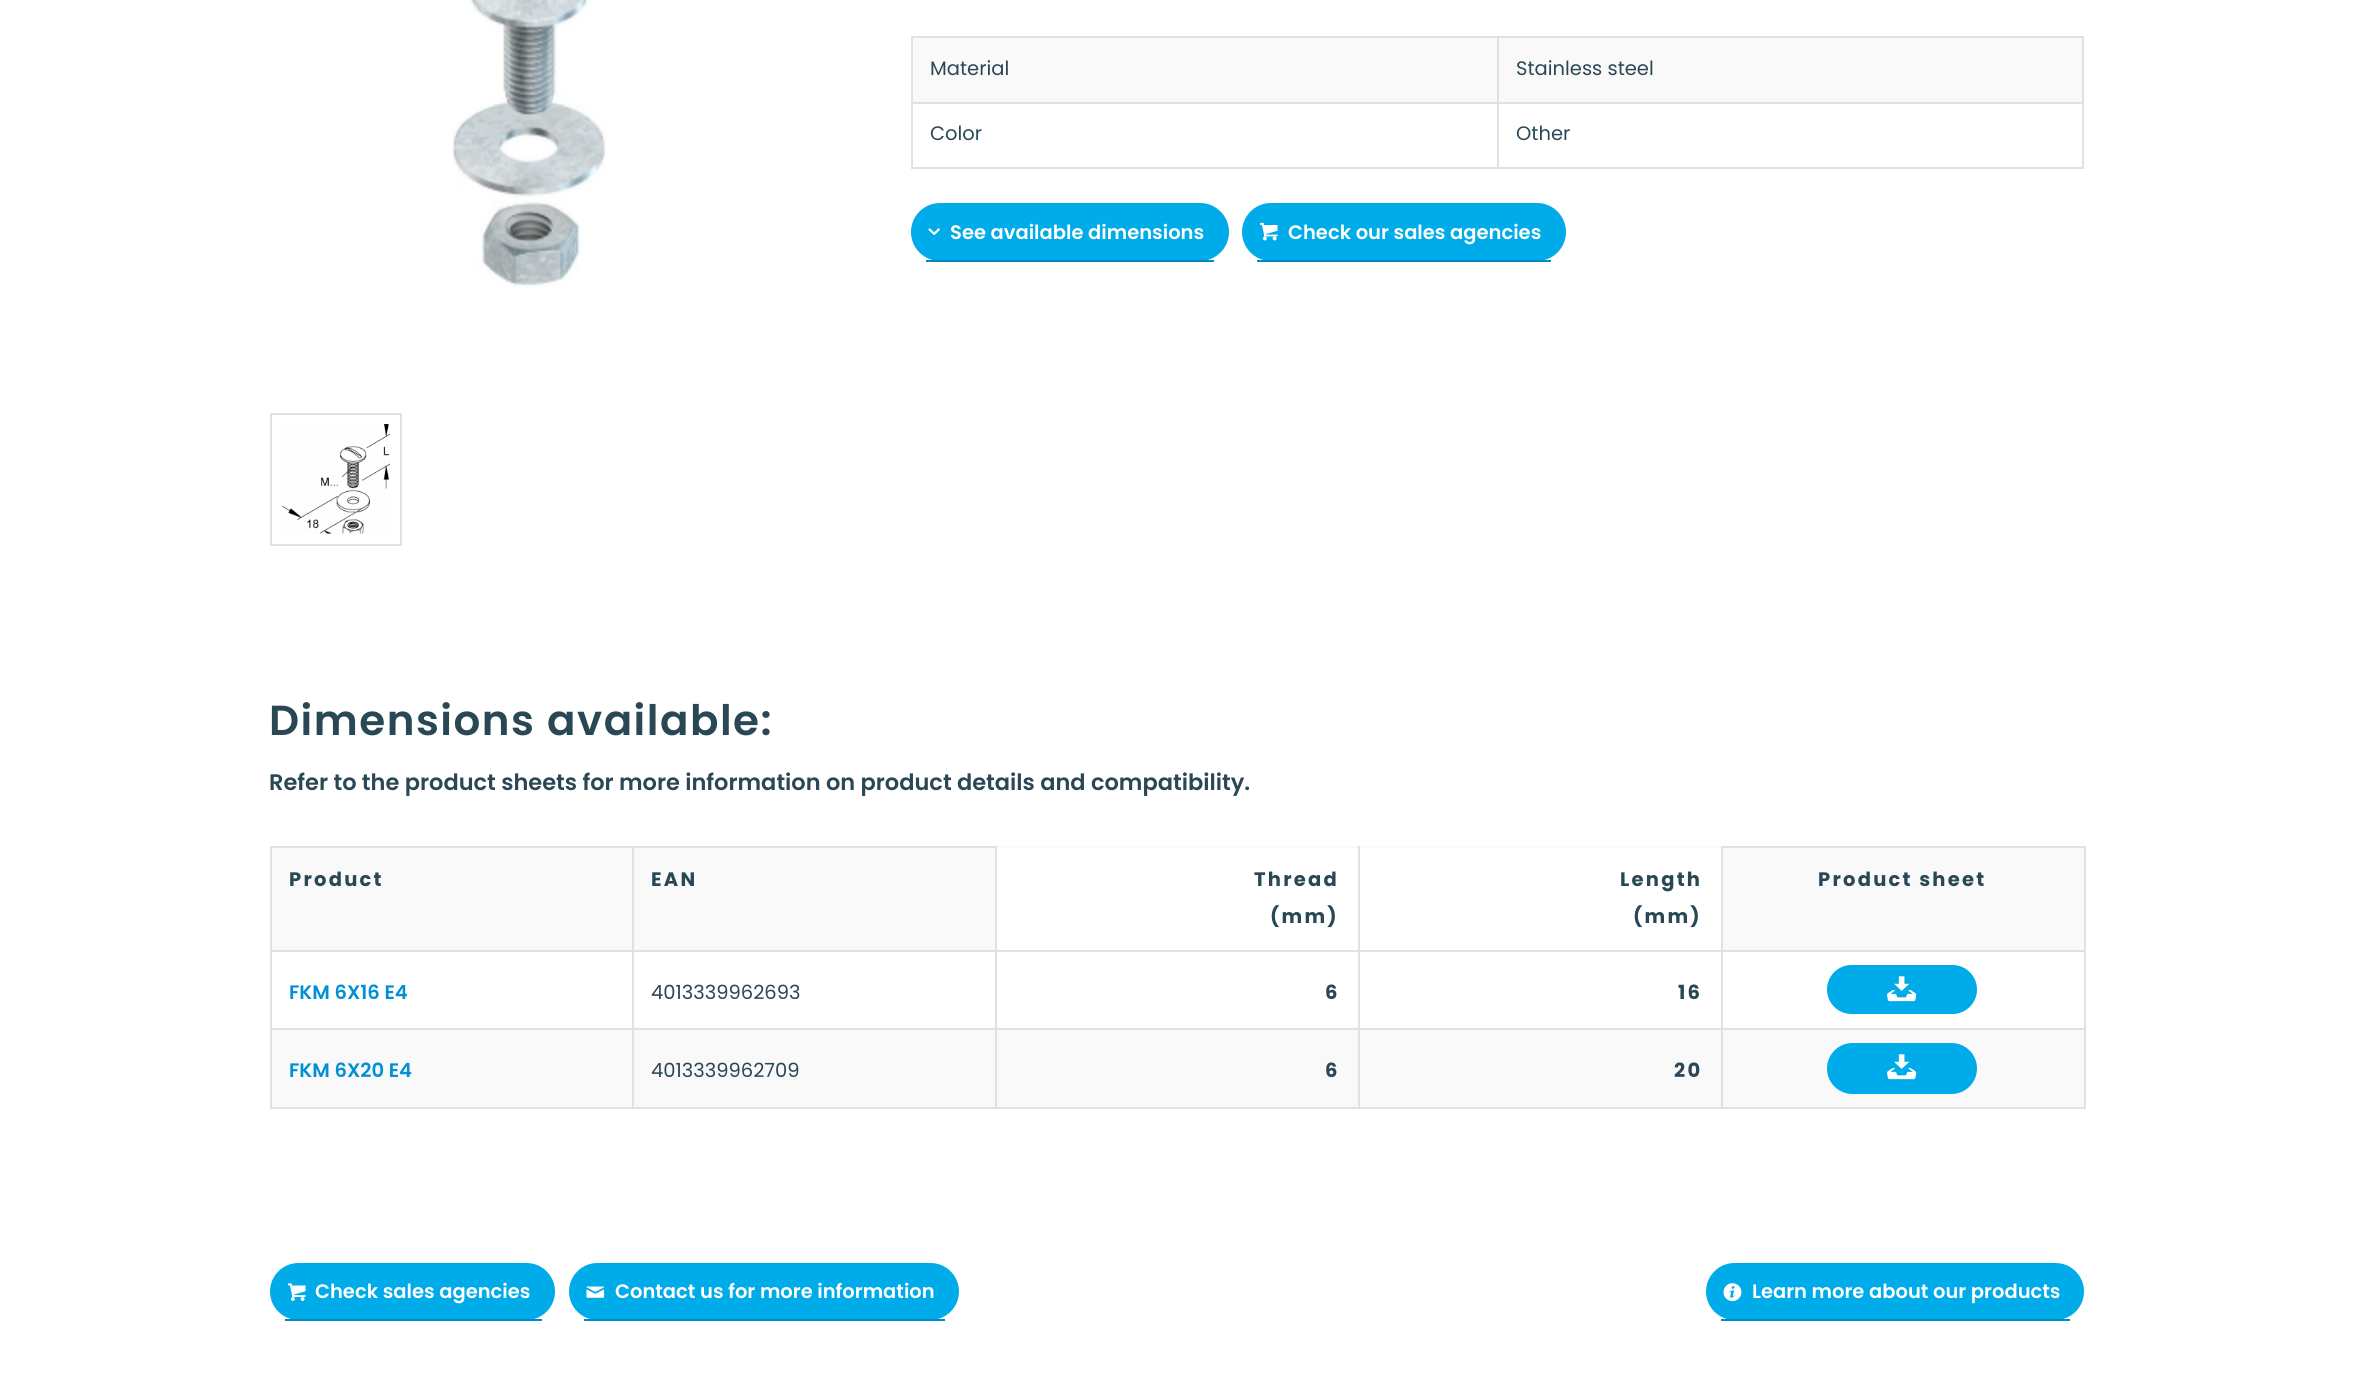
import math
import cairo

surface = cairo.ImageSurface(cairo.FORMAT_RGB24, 2353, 1381)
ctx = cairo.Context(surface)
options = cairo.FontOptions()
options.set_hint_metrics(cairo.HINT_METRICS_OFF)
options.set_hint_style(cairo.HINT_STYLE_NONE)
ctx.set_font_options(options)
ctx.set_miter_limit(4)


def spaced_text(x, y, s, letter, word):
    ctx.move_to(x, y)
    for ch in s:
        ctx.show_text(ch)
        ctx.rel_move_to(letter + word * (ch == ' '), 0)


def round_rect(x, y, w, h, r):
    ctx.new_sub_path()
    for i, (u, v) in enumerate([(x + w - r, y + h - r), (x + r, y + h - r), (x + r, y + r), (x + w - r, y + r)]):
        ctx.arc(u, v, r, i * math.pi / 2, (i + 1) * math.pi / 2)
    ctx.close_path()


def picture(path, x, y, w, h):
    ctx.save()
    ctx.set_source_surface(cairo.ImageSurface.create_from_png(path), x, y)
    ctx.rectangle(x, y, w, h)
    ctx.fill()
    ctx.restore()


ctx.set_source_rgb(1, 1, 1)
ctx.paint()
picture("img1.png", 452, 0, 154, 287)
ctx.rectangle(271, 414, 130, 131)
ctx.set_source_rgb(0.882, 0.882, 0.882)
ctx.stroke()
picture("img2.png", 282, 424, 108, 110)
ctx.set_source_rgb(0.973, 0.973, 0.973)
ctx.rectangle(913, 38, 1169, 64)
ctx.fill()
ctx.set_source_rgb(0.882, 0.882, 0.882)
ctx.rectangle(911, 36, 1173, 2)
ctx.fill()
ctx.rectangle(2082, 102, 2, 66)
ctx.fill()
ctx.rectangle(2082, 36, 2, 68)
ctx.fill()
ctx.rectangle(1497, 167, 587, 2)
ctx.fill()
ctx.rectangle(1497, 102, 2, 66)
ctx.fill()
ctx.rectangle(1497, 102, 587, 2)
ctx.fill()
ctx.rectangle(1497, 36, 2, 68)
ctx.fill()
ctx.rectangle(911, 167, 588, 2)
ctx.fill()
ctx.rectangle(911, 102, 2, 66)
ctx.fill()
ctx.rectangle(911, 102, 588, 2)
ctx.fill()
ctx.rectangle(911, 36, 2, 68)
ctx.fill()
ctx.select_font_face("Poppins")
ctx.set_font_size(19.5)
ctx.set_source_rgb(0.161, 0.278, 0.329)
ctx.move_to(930, 75)
ctx.show_text("Material")
ctx.move_to(1516, 75)
ctx.show_text("Stainless steel")
ctx.move_to(930, 140)
ctx.show_text("Color")
ctx.move_to(1516, 140)
ctx.show_text("Other")
ctx.set_source_rgb(0, 0.671, 0.914)
round_rect(911, 203, 318, 58, 29)
ctx.fill()
ctx.set_source_rgb(0, 0.537, 0.78)
ctx.rectangle(926, 260, 288, 2)
ctx.fill()
picture("img3.png", 928, 228, 12, 7)
ctx.select_font_face("Poppins SemiBold")
ctx.set_source_rgb(1, 1, 1)
ctx.move_to(950, 239)
ctx.show_text("See available dimensions")
ctx.set_source_rgb(0, 0.671, 0.914)
round_rect(1242, 203, 324, 58, 29)
ctx.fill()
ctx.set_source_rgb(0, 0.537, 0.78)
ctx.rectangle(1257, 260, 294, 2)
ctx.fill()
picture("img4.png", 1260, 222, 18, 19)
ctx.set_source_rgb(1, 1, 1)
ctx.move_to(1288, 239)
ctx.show_text("Check our sales agencies")
ctx.set_font_size(42)
ctx.set_source_rgb(0.161, 0.278, 0.329)
spaced_text(269, 735, "Dimensions available:", 1.5, 0)
ctx.set_font_size(22.5)
ctx.move_to(269, 790)
ctx.show_text("Refer to the product sheets for more information on product details and compatibility.")
ctx.set_source_rgb(0.973, 0.973, 0.973)
ctx.rectangle(272, 846, 1812, 261)
ctx.fill()
ctx.set_source_rgb(0.882, 0.882, 0.882)
ctx.rectangle(270, 846, 726, 2)
ctx.fill()
ctx.rectangle(1721, 846, 364, 2)
ctx.fill()
ctx.rectangle(2084, 950, 2, 159)
ctx.fill()
ctx.rectangle(2084, 846, 2, 105)
ctx.fill()
ctx.set_source_rgb(1, 1, 1)
ctx.rectangle(272, 952, 1812, 76)
ctx.fill()
ctx.set_source_rgb(0.882, 0.882, 0.882)
ctx.rectangle(1721, 1107, 364, 2)
ctx.fill()
ctx.rectangle(1721, 1028, 2, 81)
ctx.fill()
ctx.rectangle(1721, 1028, 364, 2)
ctx.fill()
ctx.rectangle(1721, 950, 2, 79)
ctx.fill()
ctx.rectangle(1721, 950, 364, 2)
ctx.fill()
ctx.rectangle(1721, 846, 2, 105)
ctx.fill()
ctx.rectangle(1358, 1107, 364, 2)
ctx.fill()
ctx.rectangle(1358, 1028, 2, 81)
ctx.fill()
ctx.rectangle(1358, 1028, 364, 2)
ctx.fill()
ctx.rectangle(1358, 950, 2, 79)
ctx.fill()
ctx.rectangle(1358, 950, 364, 2)
ctx.fill()
ctx.rectangle(1358, 846, 2, 105)
ctx.fill()
ctx.rectangle(995, 1107, 364, 2)
ctx.fill()
ctx.rectangle(995, 1028, 2, 81)
ctx.fill()
ctx.rectangle(995, 1028, 364, 2)
ctx.fill()
ctx.rectangle(995, 950, 2, 79)
ctx.fill()
ctx.rectangle(995, 950, 364, 2)
ctx.fill()
ctx.rectangle(995, 846, 2, 105)
ctx.fill()
ctx.rectangle(632, 1107, 364, 2)
ctx.fill()
ctx.rectangle(632, 1028, 2, 81)
ctx.fill()
ctx.rectangle(632, 1028, 364, 2)
ctx.fill()
ctx.rectangle(632, 950, 2, 79)
ctx.fill()
ctx.rectangle(632, 950, 364, 2)
ctx.fill()
ctx.rectangle(632, 846, 2, 105)
ctx.fill()
ctx.rectangle(270, 1107, 363, 2)
ctx.fill()
ctx.rectangle(270, 1028, 2, 81)
ctx.fill()
ctx.rectangle(270, 1028, 363, 2)
ctx.fill()
ctx.rectangle(270, 950, 2, 79)
ctx.fill()
ctx.rectangle(270, 950, 363, 2)
ctx.fill()
ctx.rectangle(270, 846, 2, 105)
ctx.fill()
ctx.select_font_face("Poppins", cairo.FONT_SLANT_NORMAL, cairo.FONT_WEIGHT_BOLD)
ctx.set_font_size(19.5)
ctx.set_source_rgb(0.161, 0.278, 0.329)
spaced_text(289, 886, "Product", 2.25, 0)
spaced_text(651, 886, "EAN", 2.25, 0)
ctx.set_source_rgb(1, 1, 1)
ctx.rectangle(997, 848, 361, 102)
ctx.fill()
ctx.set_source_rgb(0.161, 0.278, 0.329)
spaced_text(1254, 886, "Thread", 2.25, 0)
spaced_text(1270, 923, "(mm)", 2.25, 0)
ctx.set_source_rgb(1, 1, 1)
ctx.rectangle(1360, 848, 361, 102)
ctx.fill()
ctx.set_source_rgb(0.161, 0.278, 0.329)
spaced_text(1620, 886, "Length", 2.25, 0)
spaced_text(1633, 923, "(mm)", 2.25, 0)
spaced_text(1818, 886, "Product sheet", 2.25, 0)
ctx.select_font_face("Poppins SemiBold")
ctx.set_source_rgb(0, 0.565, 0.827)
ctx.move_to(289, 999)
ctx.show_text("FKM 6X16 E4")
ctx.select_font_face("Poppins")
ctx.set_source_rgb(0.161, 0.278, 0.329)
ctx.move_to(651, 999)
ctx.show_text("4013339962693")
ctx.select_font_face("Poppins", cairo.FONT_SLANT_NORMAL, cairo.FONT_WEIGHT_BOLD)
spaced_text(1325, 999, "6", 2.25, 0)
spaced_text(1678, 999, "16", 2.25, 0)
ctx.set_source_rgb(0, 0.671, 0.914)
round_rect(1827, 965, 150, 49, 24.5)
ctx.fill()
picture("img5.png", 1887, 976, 30, 26)
ctx.select_font_face("Poppins SemiBold")
ctx.set_source_rgb(0, 0.565, 0.827)
ctx.move_to(289, 1077)
ctx.show_text("FKM 6X20 E4")
ctx.select_font_face("Poppins")
ctx.set_source_rgb(0.161, 0.278, 0.329)
ctx.move_to(651, 1077)
ctx.show_text("4013339962709")
ctx.select_font_face("Poppins", cairo.FONT_SLANT_NORMAL, cairo.FONT_WEIGHT_BOLD)
spaced_text(1325, 1077, "6", 2.25, 0)
spaced_text(1674, 1077, "20", 2.25, 0)
ctx.set_source_rgb(0, 0.671, 0.914)
round_rect(1827, 1043, 150, 51, 25.5)
ctx.fill()
picture("img5.png", 1887, 1054, 30, 26)
round_rect(270, 1263, 285, 57, 28.5)
ctx.fill()
ctx.set_source_rgb(0, 0.537, 0.78)
ctx.rectangle(285, 1319, 257, 2)
ctx.fill()
picture("img6.png", 288, 1283, 18, 18)
ctx.select_font_face("Poppins SemiBold")
ctx.set_source_rgb(1, 1, 1)
ctx.move_to(315, 1298)
ctx.show_text("Check sales agencies")
ctx.set_source_rgb(0, 0.671, 0.914)
round_rect(569, 1263, 390, 57, 28.5)
ctx.fill()
ctx.set_source_rgb(0, 0.537, 0.78)
ctx.rectangle(584, 1319, 361, 2)
ctx.fill()
picture("img7.png", 586, 1286, 19, 12)
ctx.set_source_rgb(1, 1, 1)
ctx.move_to(615, 1298)
ctx.show_text("Contact us for more information")
ctx.set_source_rgb(0, 0.671, 0.914)
round_rect(1706, 1263, 378, 57, 28.5)
ctx.fill()
ctx.set_source_rgb(0, 0.537, 0.78)
ctx.rectangle(1721, 1319, 349, 2)
ctx.fill()
picture("img8.png", 1723, 1283, 19, 19)
ctx.set_source_rgb(1, 1, 1)
ctx.move_to(1752, 1298)
ctx.show_text("Learn more about our products")
surface.write_to_png("page.png")
